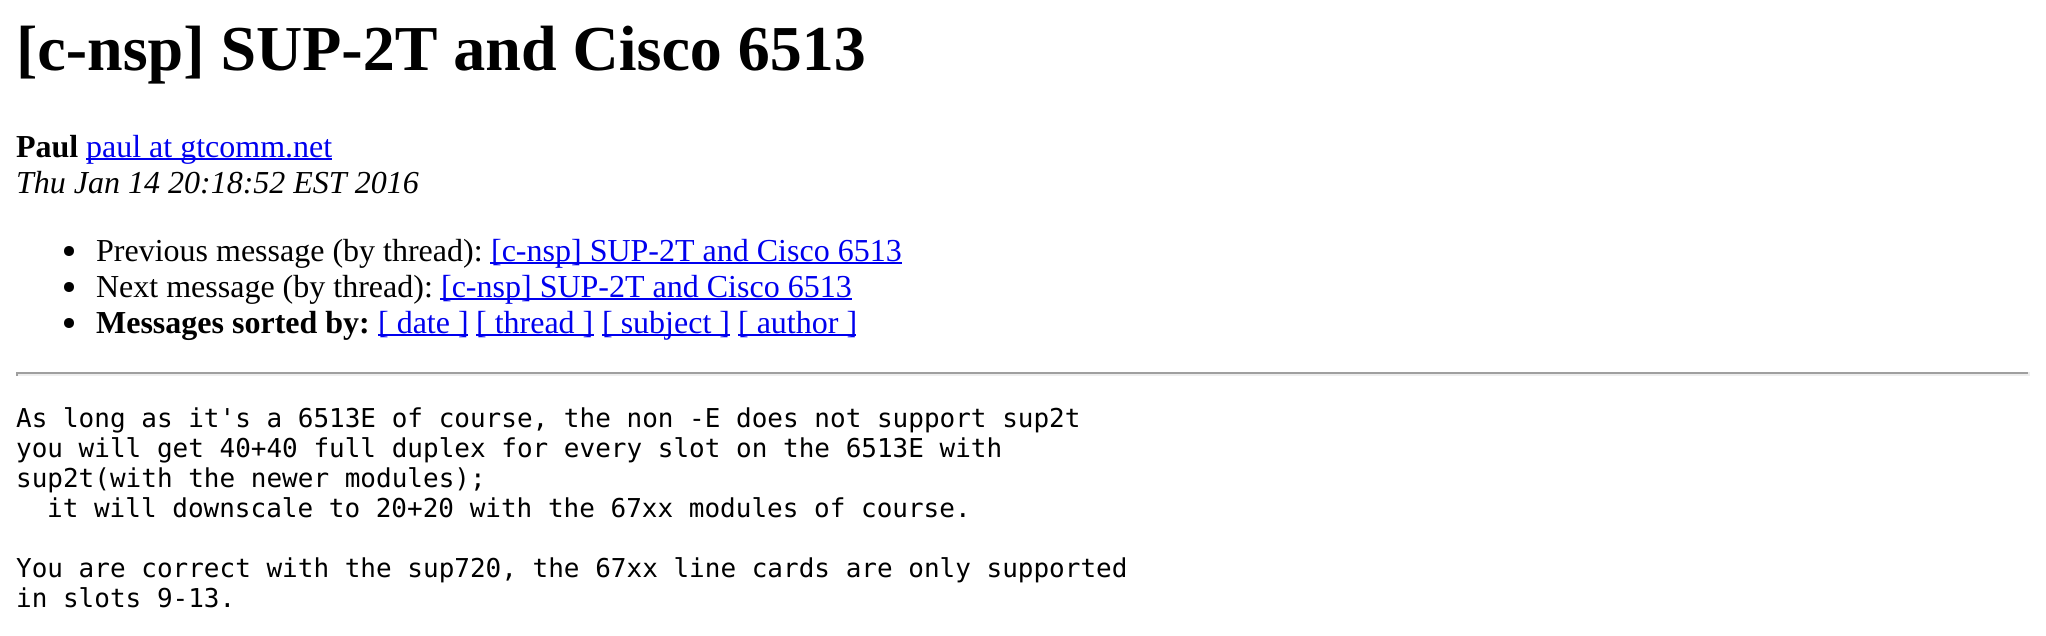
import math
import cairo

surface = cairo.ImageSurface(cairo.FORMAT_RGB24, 2046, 636)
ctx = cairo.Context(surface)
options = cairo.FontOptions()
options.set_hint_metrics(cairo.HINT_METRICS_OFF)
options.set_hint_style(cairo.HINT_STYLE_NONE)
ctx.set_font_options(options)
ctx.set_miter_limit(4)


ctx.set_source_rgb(1, 1, 1)
ctx.paint()
ctx.select_font_face("Liberation Serif", cairo.FONT_SLANT_NORMAL, cairo.FONT_WEIGHT_BOLD)
ctx.set_font_size(64)
ctx.set_source_rgb(0, 0, 0)
ctx.move_to(16, 70)
ctx.show_text("[c-nsp] SUP-2T and Cisco 6513")
ctx.set_font_size(32)
ctx.move_to(16, 157)
ctx.show_text("Paul")
ctx.set_source_rgb(0, 0, 0.933)
ctx.rectangle(86, 158, 246, 2)
ctx.fill()
ctx.select_font_face("Liberation Serif")
ctx.move_to(86, 157)
ctx.show_text("paul at gtcomm.net")
ctx.select_font_face("Liberation Serif", cairo.FONT_SLANT_ITALIC)
ctx.set_source_rgb(0, 0, 0)
ctx.move_to(16, 193)
ctx.show_text("Thu Jan 14 20:18:52 EST 2016")
ctx.new_path()
ctx.arc(69, 251, 5, 0, 2 * math.pi)
ctx.fill()
ctx.select_font_face("Liberation Serif")
ctx.move_to(96, 261)
ctx.show_text("Previous message (by thread):")
ctx.set_source_rgb(0, 0, 0.933)
ctx.rectangle(490, 262, 412, 2)
ctx.fill()
ctx.move_to(491, 261)
ctx.show_text("[c-nsp] SUP-2T and Cisco 6513")
ctx.set_source_rgb(0, 0, 0)
ctx.new_path()
ctx.arc(69, 287, 5, 0, 2 * math.pi)
ctx.fill()
ctx.move_to(96, 297)
ctx.show_text("Next message (by thread):")
ctx.set_source_rgb(0, 0, 0.933)
ctx.rectangle(440, 298, 412, 2)
ctx.fill()
ctx.move_to(441, 297)
ctx.show_text("[c-nsp] SUP-2T and Cisco 6513")
ctx.set_source_rgb(0, 0, 0)
ctx.new_path()
ctx.arc(69, 323, 5, 0, 2 * math.pi)
ctx.fill()
ctx.select_font_face("Liberation Serif", cairo.FONT_SLANT_NORMAL, cairo.FONT_WEIGHT_BOLD)
ctx.move_to(96, 333)
ctx.show_text("Messages sorted by:")
ctx.set_source_rgb(0, 0, 0.933)
ctx.rectangle(378, 334, 90, 2)
ctx.fill()
ctx.select_font_face("Liberation Serif")
ctx.move_to(378, 333)
ctx.show_text("[ date ]")
ctx.rectangle(476, 334, 118, 2)
ctx.fill()
ctx.move_to(476, 333)
ctx.show_text("[ thread ]")
ctx.rectangle(602, 334, 128, 2)
ctx.fill()
ctx.move_to(602, 333)
ctx.show_text("[ subject ]")
ctx.rectangle(738, 334, 118, 2)
ctx.fill()
ctx.move_to(738, 333)
ctx.show_text("[ author ]")
ctx.set_source_rgb(0.624, 0.624, 0.624)
ctx.rectangle(16, 372, 2014, 2)
ctx.fill()
ctx.set_source_rgb(0.933, 0.933, 0.933)
ctx.rectangle(2028, 372, 2, 4)
ctx.fill()
ctx.rectangle(16, 374, 2014, 2)
ctx.fill()
ctx.set_source_rgb(0.624, 0.624, 0.624)
ctx.rectangle(16, 372, 2, 4)
ctx.fill()
ctx.select_font_face("DejaVu Sans Mono")
ctx.set_font_size(26)
ctx.set_source_rgb(0, 0, 0)
ctx.move_to(16, 427)
ctx.show_text("As long as it's a 6513E of course, the non -E does not support sup2t")
ctx.move_to(16, 457)
ctx.show_text("you will get 40+40 full duplex for every slot on the 6513E with")
ctx.move_to(16, 487)
ctx.show_text("sup2t(with the newer modules);")
ctx.move_to(47, 517)
ctx.show_text("it will downscale to 20+20 with the 67xx modules of course.")
ctx.move_to(16, 577)
ctx.show_text("You are correct with the sup720, the 67xx line cards are only supported")
ctx.move_to(16, 607)
ctx.show_text("in slots 9-13.")
surface.write_to_png("page.png")
